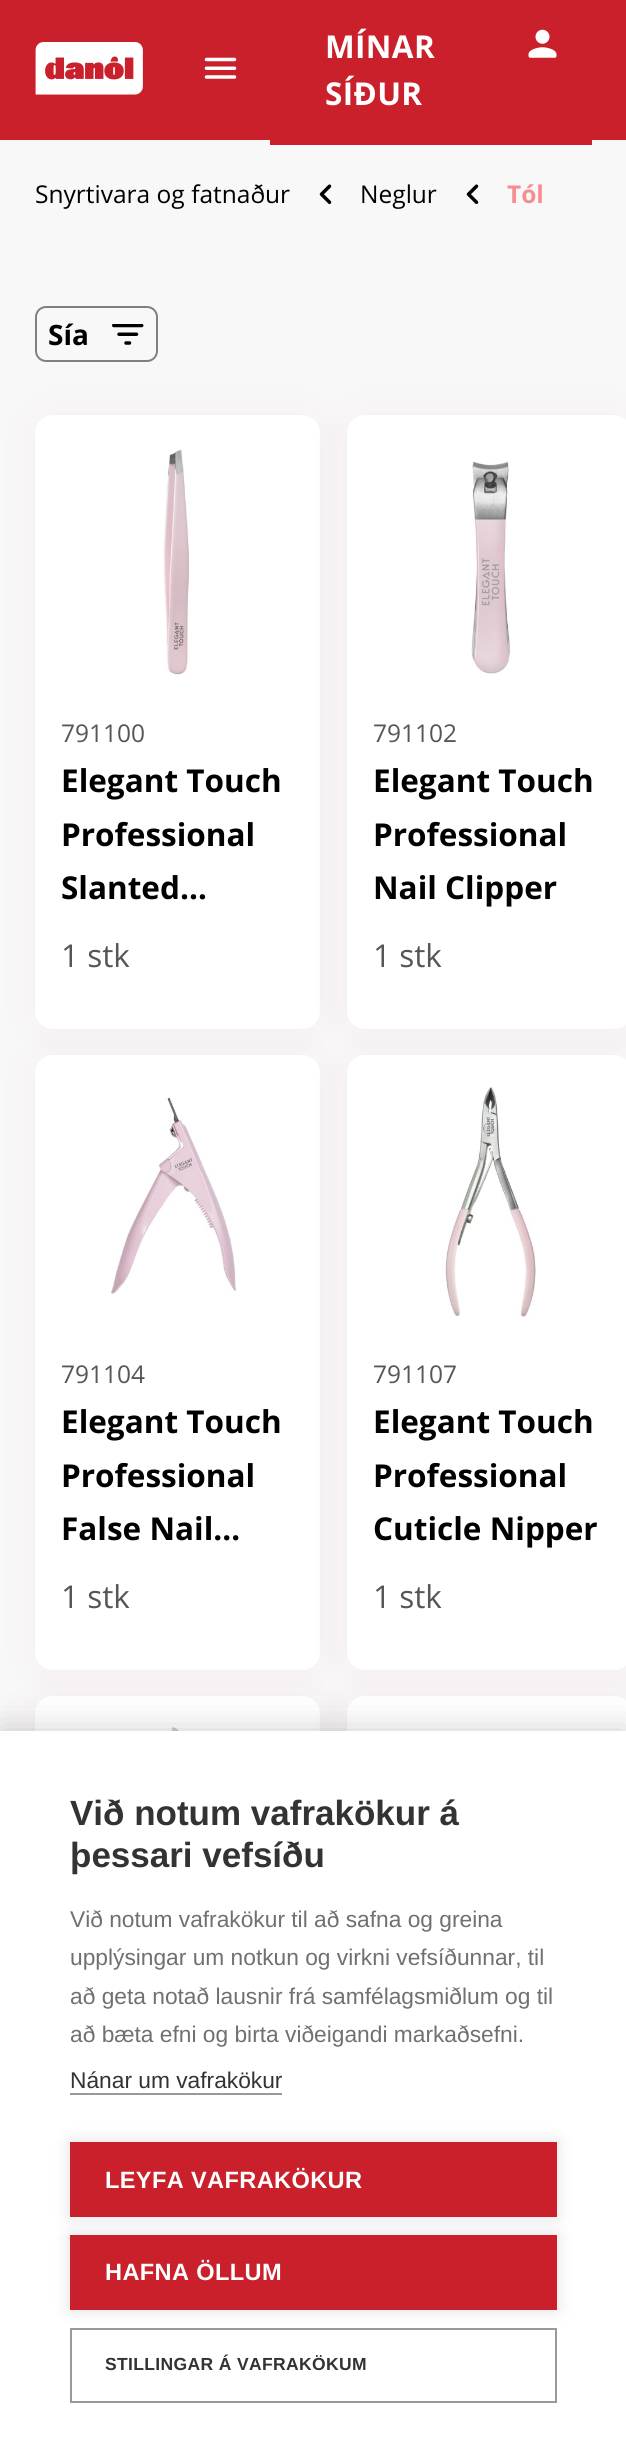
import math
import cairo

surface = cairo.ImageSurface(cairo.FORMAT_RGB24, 626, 2446)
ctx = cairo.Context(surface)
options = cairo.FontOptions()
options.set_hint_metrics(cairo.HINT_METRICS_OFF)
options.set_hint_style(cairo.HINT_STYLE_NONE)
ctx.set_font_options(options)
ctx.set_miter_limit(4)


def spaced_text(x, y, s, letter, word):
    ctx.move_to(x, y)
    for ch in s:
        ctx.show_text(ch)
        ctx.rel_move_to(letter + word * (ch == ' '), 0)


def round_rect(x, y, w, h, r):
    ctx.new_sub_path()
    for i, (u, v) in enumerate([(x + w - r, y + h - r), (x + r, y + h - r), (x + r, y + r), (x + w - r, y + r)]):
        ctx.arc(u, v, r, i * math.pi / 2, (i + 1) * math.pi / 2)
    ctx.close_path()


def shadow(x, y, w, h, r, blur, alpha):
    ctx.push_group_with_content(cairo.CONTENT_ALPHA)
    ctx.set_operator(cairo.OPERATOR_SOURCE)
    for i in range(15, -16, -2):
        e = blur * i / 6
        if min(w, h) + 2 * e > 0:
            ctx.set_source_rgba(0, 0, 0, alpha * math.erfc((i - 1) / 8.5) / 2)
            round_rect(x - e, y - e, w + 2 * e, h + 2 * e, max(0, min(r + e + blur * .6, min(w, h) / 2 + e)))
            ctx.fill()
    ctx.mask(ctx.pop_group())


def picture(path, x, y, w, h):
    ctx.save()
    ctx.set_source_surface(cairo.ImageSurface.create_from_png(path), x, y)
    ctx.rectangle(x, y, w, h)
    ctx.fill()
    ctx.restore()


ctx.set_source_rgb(0.969, 0.969, 0.969)
ctx.paint()
ctx.set_source_rgb(0.792, 0.125, 0.169)
ctx.rectangle(0, 0, 626, 140)
ctx.fill()
picture("img1.png", 35, 42, 108, 53)
picture("img2.png", 204, 57, 33, 22)
ctx.rectangle(270, 140, 322, 5)
ctx.fill()
ctx.select_font_face("Open Sans", cairo.FONT_SLANT_NORMAL, cairo.FONT_WEIGHT_BOLD)
ctx.set_font_size(31.5)
ctx.set_source_rgb(1, 1, 1)
spaced_text(325, 58, "MÍNAR", 0.35, 0)
spaced_text(325, 105, "SÍÐUR", 0.35, 0)
picture("img3.png", 528, 29, 29, 29)
ctx.select_font_face("Open Sans")
ctx.set_font_size(24.5)
ctx.set_source_rgb(0, 0, 0)
ctx.move_to(35, 203)
ctx.show_text("Snyrtivara og fatnaður")
picture("img4.png", 319, 184, 13, 20)
ctx.move_to(360, 203)
ctx.show_text("Neglur")
picture("img4.png", 466, 184, 13, 20)
ctx.select_font_face("Open Sans", cairo.FONT_SLANT_NORMAL, cairo.FONT_WEIGHT_BOLD)
ctx.set_source_rgb(0.965, 0.553, 0.573)
ctx.move_to(507, 203)
ctx.show_text("Tól")
round_rect(36, 307, 121, 54, 10)
ctx.set_source_rgb(0.502, 0.502, 0.502)
ctx.stroke()
ctx.set_font_size(28)
ctx.set_source_rgb(0, 0, 0)
ctx.move_to(48, 345)
ctx.show_text("Sía")
picture("img5.png", 112, 324, 32, 21)
ctx.set_source_rgb(0.792, 0.125, 0.169)
shadow(35, 415, 285, 614, 18, 21, 0.05)
ctx.set_source_rgb(1, 1, 1)
round_rect(37.5, 417.5, 280, 609, 15.5)
ctx.fill_preserve()
ctx.set_line_width(5)
ctx.stroke()
picture("img6.png", 163, 449, 27, 226)
ctx.select_font_face("Open Sans")
ctx.set_font_size(24.5)
ctx.set_source_rgb(0.337, 0.337, 0.337)
ctx.move_to(61, 742)
ctx.show_text("791100")
ctx.select_font_face("Open Sans", cairo.FONT_SLANT_NORMAL, cairo.FONT_WEIGHT_BOLD)
ctx.set_font_size(31.5)
ctx.set_source_rgb(0, 0, 0)
ctx.move_to(61, 792)
ctx.show_text("Elegant Touch")
ctx.move_to(61, 846)
ctx.show_text("Professional")
ctx.move_to(61, 899)
ctx.show_text("Slanted…")
ctx.select_font_face("Open Sans")
ctx.set_source_rgb(0.337, 0.337, 0.337)
ctx.move_to(61, 967)
ctx.show_text("1 stk")
ctx.set_source_rgb(0.792, 0.125, 0.169)
shadow(347, 415, 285, 614, 18, 21, 0.05)
ctx.set_source_rgb(1, 1, 1)
round_rect(349.5, 417.5, 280, 609, 15.5)
ctx.fill_preserve()
ctx.stroke()
picture("img7.png", 471, 461, 40, 213)
ctx.set_font_size(24.5)
ctx.set_source_rgb(0.337, 0.337, 0.337)
ctx.move_to(373, 742)
ctx.show_text("791102")
ctx.select_font_face("Open Sans", cairo.FONT_SLANT_NORMAL, cairo.FONT_WEIGHT_BOLD)
ctx.set_font_size(31.5)
ctx.set_source_rgb(0, 0, 0)
ctx.move_to(373, 792)
ctx.show_text("Elegant Touch")
ctx.move_to(373, 846)
ctx.show_text("Professional")
ctx.move_to(373, 899)
ctx.show_text("Nail Clipper")
ctx.select_font_face("Open Sans")
ctx.set_source_rgb(0.337, 0.337, 0.337)
ctx.move_to(373, 967)
ctx.show_text("1 stk")
ctx.set_source_rgb(0.792, 0.125, 0.169)
shadow(35, 1055, 285, 615, 18, 21, 0.05)
ctx.set_source_rgb(1, 1, 1)
round_rect(37.5, 1057.5, 280, 610, 15.5)
ctx.fill_preserve()
ctx.stroke()
picture("img8.png", 111, 1097, 126, 197)
ctx.set_font_size(24.5)
ctx.set_source_rgb(0.337, 0.337, 0.337)
ctx.move_to(61, 1383)
ctx.show_text("791104")
ctx.select_font_face("Open Sans", cairo.FONT_SLANT_NORMAL, cairo.FONT_WEIGHT_BOLD)
ctx.set_font_size(31.5)
ctx.set_source_rgb(0, 0, 0)
ctx.move_to(61, 1433)
ctx.show_text("Elegant Touch")
ctx.move_to(61, 1487)
ctx.show_text("Professional")
ctx.move_to(61, 1540)
ctx.show_text("False Nail…")
ctx.select_font_face("Open Sans")
ctx.set_source_rgb(0.337, 0.337, 0.337)
ctx.move_to(61, 1608)
ctx.show_text("1 stk")
ctx.set_source_rgb(0.792, 0.125, 0.169)
shadow(347, 1055, 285, 615, 18, 21, 0.05)
ctx.set_source_rgb(1, 1, 1)
round_rect(349.5, 1057.5, 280, 610, 15.5)
ctx.fill_preserve()
ctx.stroke()
picture("img9.png", 445, 1087, 91, 230)
ctx.set_font_size(24.5)
ctx.set_source_rgb(0.337, 0.337, 0.337)
ctx.move_to(373, 1383)
ctx.show_text("791107")
ctx.select_font_face("Open Sans", cairo.FONT_SLANT_NORMAL, cairo.FONT_WEIGHT_BOLD)
ctx.set_font_size(31.5)
ctx.set_source_rgb(0, 0, 0)
ctx.move_to(373, 1433)
ctx.show_text("Elegant Touch")
ctx.move_to(373, 1487)
ctx.show_text("Professional")
ctx.move_to(373, 1540)
ctx.show_text("Cuticle Nipper")
ctx.select_font_face("Open Sans")
ctx.set_source_rgb(0.337, 0.337, 0.337)
ctx.move_to(373, 1608)
ctx.show_text("1 stk")
ctx.set_source_rgb(0.792, 0.125, 0.169)
shadow(35, 1696, 285, 616, 18, 21, 0.05)
ctx.set_source_rgb(1, 1, 1)
round_rect(37.5, 1698.5, 280, 611, 15.5)
ctx.fill_preserve()
ctx.stroke()
picture("img10.png", 171, 1727, 13, 4)
ctx.set_source_rgb(0.792, 0.125, 0.169)
shadow(347, 1696, 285, 616, 18, 21, 0.05)
ctx.set_source_rgb(1, 1, 1)
round_rect(349.5, 1698.5, 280, 611, 15.5)
ctx.fill_preserve()
ctx.stroke()
ctx.set_source_rgb(0, 0, 0)
shadow(0, 1731, 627, 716, 0, 17.5, 0.2)
ctx.set_source_rgb(1, 1, 1)
ctx.rectangle(0, 1731, 626, 715)
ctx.fill()
ctx.select_font_face("Liberation Sans", cairo.FONT_SLANT_NORMAL, cairo.FONT_WEIGHT_BOLD)
ctx.set_font_size(35)
ctx.set_source_rgb(0.2, 0.2, 0.2)
ctx.move_to(70, 1825)
ctx.show_text("Við notum vafrakökur á")
ctx.move_to(70, 1867)
ctx.show_text("þessari vefsíðu")
ctx.select_font_face("Liberation Sans")
ctx.set_font_size(22.75)
ctx.set_source_rgb(0.439, 0.439, 0.439)
ctx.move_to(70, 1927)
ctx.show_text("Við notum vafrakökur til að safna og greina")
ctx.move_to(70, 1965)
ctx.show_text("upplýsingar um notkun og virkni vefsíðunnar, til")
ctx.move_to(70, 2004)
ctx.show_text("að geta notað lausnir frá samfélagsmiðlum og til")
ctx.move_to(70, 2042)
ctx.show_text("að bæta efni og birta viðeigandi markaðsefni.")
ctx.set_source_rgb(0.2, 0.2, 0.2)
ctx.move_to(70, 2088)
ctx.show_text("Nánar um vafrakökur")
ctx.set_source_rgb(0.6, 0.6, 0.6)
ctx.rectangle(70, 2093, 212, 2)
ctx.fill()
ctx.set_source_rgb(0, 0, 0)
shadow(70, 2142, 487, 75, 0, 9, 0.12)
ctx.set_source_rgb(0.792, 0.125, 0.169)
ctx.rectangle(70, 2142, 487, 75)
ctx.fill()
ctx.select_font_face("Liberation Sans", cairo.FONT_SLANT_NORMAL, cairo.FONT_WEIGHT_BOLD)
ctx.set_font_size(23.6)
ctx.set_source_rgb(1, 1, 1)
spaced_text(105, 2188, "LEYFA VAFRAKÖKUR", 0.35, 0)
ctx.set_source_rgb(0, 0, 0)
shadow(70, 2235, 487, 75, 0, 9, 0.12)
ctx.set_source_rgb(0.792, 0.125, 0.169)
ctx.rectangle(70, 2235, 487, 75)
ctx.fill()
ctx.set_source_rgb(1, 1, 1)
spaced_text(105, 2280, "HAFNA ÖLLUM", 0.35, 0)
ctx.rectangle(71, 2329, 485, 73)
ctx.set_source_rgb(0.6, 0.6, 0.6)
ctx.set_line_width(2)
ctx.stroke()
ctx.set_font_size(17.5)
ctx.set_source_rgb(0.2, 0.2, 0.2)
spaced_text(105, 2370, "STILLINGAR Á VAFRAKÖKUM", 0.35, 0)
surface.write_to_png("page.png")
